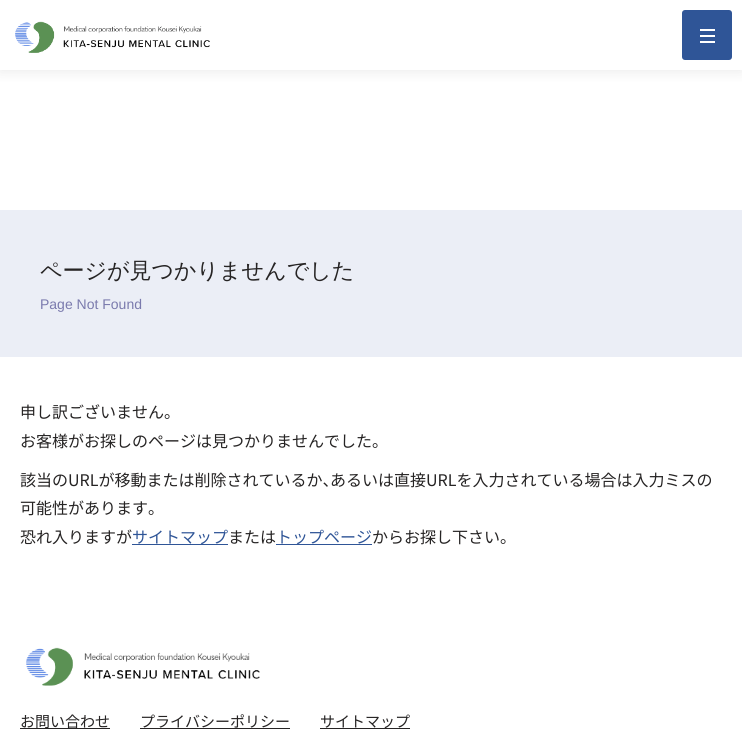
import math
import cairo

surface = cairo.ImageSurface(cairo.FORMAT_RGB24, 742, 742)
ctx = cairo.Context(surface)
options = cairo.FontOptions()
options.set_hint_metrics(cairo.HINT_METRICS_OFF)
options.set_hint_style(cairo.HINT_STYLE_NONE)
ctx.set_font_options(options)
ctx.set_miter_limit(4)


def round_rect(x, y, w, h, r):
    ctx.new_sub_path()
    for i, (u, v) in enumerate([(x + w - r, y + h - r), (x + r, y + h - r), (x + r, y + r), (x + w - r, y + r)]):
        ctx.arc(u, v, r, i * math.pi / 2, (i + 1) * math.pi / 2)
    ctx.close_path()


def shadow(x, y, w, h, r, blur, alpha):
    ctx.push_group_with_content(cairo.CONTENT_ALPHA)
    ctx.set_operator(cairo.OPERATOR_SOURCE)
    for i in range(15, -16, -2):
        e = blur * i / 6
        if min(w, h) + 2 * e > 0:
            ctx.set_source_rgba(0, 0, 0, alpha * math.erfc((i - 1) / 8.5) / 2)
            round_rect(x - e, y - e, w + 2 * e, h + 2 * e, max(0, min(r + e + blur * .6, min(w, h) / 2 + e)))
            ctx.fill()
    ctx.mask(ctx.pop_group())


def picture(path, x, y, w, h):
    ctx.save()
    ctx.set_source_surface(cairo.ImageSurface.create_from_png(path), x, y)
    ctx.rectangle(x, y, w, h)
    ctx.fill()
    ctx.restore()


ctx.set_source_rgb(1, 1, 1)
ctx.paint()
ctx.save()
ctx.rectangle(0, 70, 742, 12)
ctx.clip()
ctx.set_source_rgb(0.757, 0.757, 0.757)
shadow(0, 0, 742, 70, 0, 7.5, 0.4)
ctx.restore()
picture("img1.png", 15, 21, 195, 32)
ctx.set_source_rgb(0.184, 0.333, 0.592)
round_rect(682, 10, 50, 50, 3)
ctx.fill()
ctx.set_source_rgb(1, 1, 1)
ctx.rectangle(700, 29, 15, 2)
ctx.fill()
ctx.rectangle(700, 35, 15, 2)
ctx.fill()
ctx.rectangle(700, 41, 15, 2)
ctx.fill()
ctx.set_source_rgb(0.918, 0.933, 0.961)
ctx.rectangle(0, 210, 742, 147)
ctx.fill()
ctx.select_font_face("WenQuanYi Zen Hei Medium")
ctx.set_font_size(22)
ctx.set_source_rgb(0.149, 0.141, 0.141)
ctx.move_to(40, 278)
ctx.show_text("ページが見つかりませんでした")
ctx.select_font_face("Liberation Sans")
ctx.set_font_size(14)
ctx.set_source_rgb(0.478, 0.478, 0.678)
ctx.move_to(40, 309)
ctx.show_text("Page Not Found")
ctx.select_font_face("Noto Sans JP")
ctx.set_font_size(16)
ctx.set_source_rgb(0.149, 0.141, 0.141)
ctx.move_to(20, 418)
ctx.show_text("申し訳ございません。")
ctx.move_to(20, 447)
ctx.show_text("お客様がお探しのページは見つかりませんでした。")
ctx.move_to(20, 486)
ctx.show_text("該当のURLが移動または削除されているか、")
ctx.move_to(330, 486)
ctx.show_text("あるいは直接URLを入力されている場合は入力ミスの")
ctx.move_to(20, 514)
ctx.show_text("可能性があります。")
ctx.move_to(20, 543)
ctx.show_text("恐れ入りますが")
ctx.set_source_rgb(0.184, 0.333, 0.592)
ctx.rectangle(132, 544, 96, 1)
ctx.fill()
ctx.move_to(132, 543)
ctx.show_text("サイトマップ")
ctx.set_source_rgb(0.149, 0.141, 0.141)
ctx.move_to(228, 543)
ctx.show_text("または")
ctx.set_source_rgb(0.184, 0.333, 0.592)
ctx.rectangle(276, 544, 96, 1)
ctx.fill()
ctx.move_to(276, 543)
ctx.show_text("トップページ")
ctx.set_source_rgb(0.149, 0.141, 0.141)
ctx.move_to(372, 543)
ctx.show_text("からお探し下さい。")
picture("img2.png", 26, 647, 234, 39)
ctx.rectangle(20, 728, 90, 1)
ctx.fill()
ctx.set_font_size(15)
ctx.move_to(20, 727)
ctx.show_text("お問い合わせ")
ctx.move_to(140, 727)
ctx.show_text("プライバシーポリシー")
ctx.rectangle(140, 728, 150, 1)
ctx.fill()
ctx.rectangle(320, 728, 90, 1)
ctx.fill()
ctx.move_to(320, 727)
ctx.show_text("サイトマップ")
surface.write_to_png("page.png")
